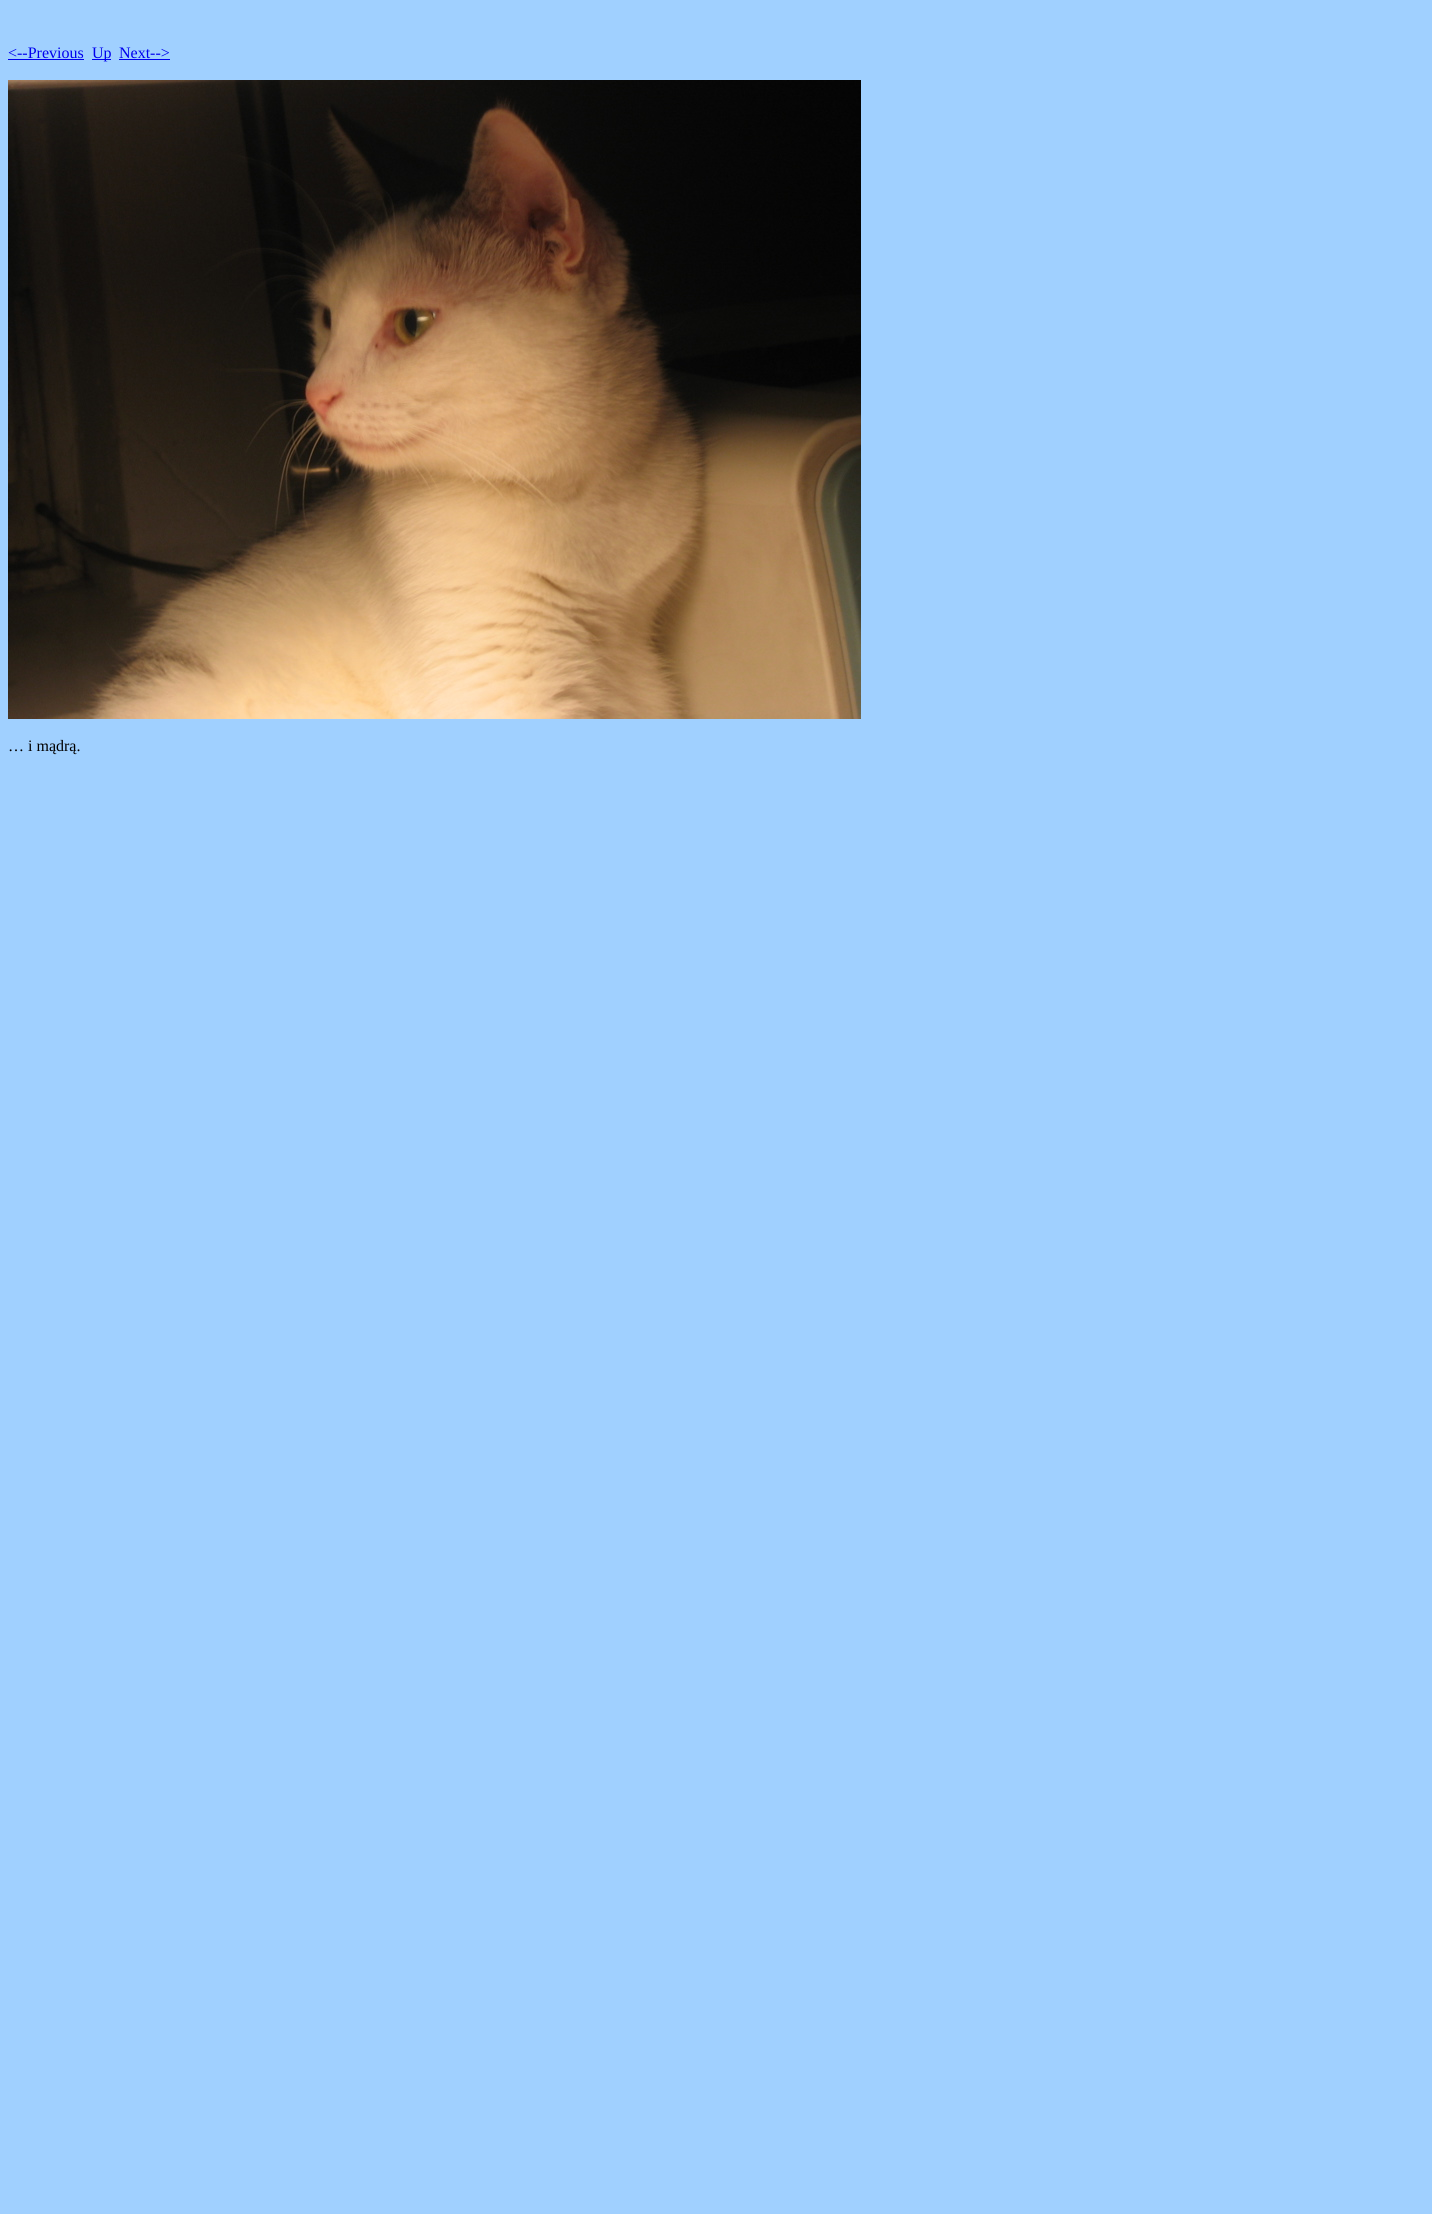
import math
import cairo

surface = cairo.ImageSurface(cairo.FORMAT_RGB24, 1432, 2214)
ctx = cairo.Context(surface)
options = cairo.FontOptions()
options.set_hint_metrics(cairo.HINT_METRICS_OFF)
options.set_hint_style(cairo.HINT_STYLE_NONE)
ctx.set_font_options(options)
ctx.set_miter_limit(4)


def picture(path, x, y, w, h):
    ctx.save()
    ctx.set_source_surface(cairo.ImageSurface.create_from_png(path), x, y)
    ctx.rectangle(x, y, w, h)
    ctx.fill()
    ctx.restore()


ctx.set_source_rgb(0.627, 0.816, 1)
ctx.paint()
ctx.select_font_face("Liberation Serif")
ctx.set_font_size(16)
ctx.set_source_rgb(0, 0, 0.933)
ctx.move_to(8, 58)
ctx.show_text("<--Previous")
ctx.rectangle(8, 59, 76, 1)
ctx.fill()
ctx.rectangle(92, 59, 19, 1)
ctx.fill()
ctx.move_to(92, 58)
ctx.show_text("Up")
ctx.move_to(119, 58)
ctx.show_text("Next-->")
ctx.rectangle(119, 59, 51, 1)
ctx.fill()
picture("img1.png", 8, 80, 853, 639)
ctx.set_source_rgb(0, 0, 0)
ctx.move_to(8, 751)
ctx.show_text("… i mądrą.")
surface.write_to_png("page.png")
